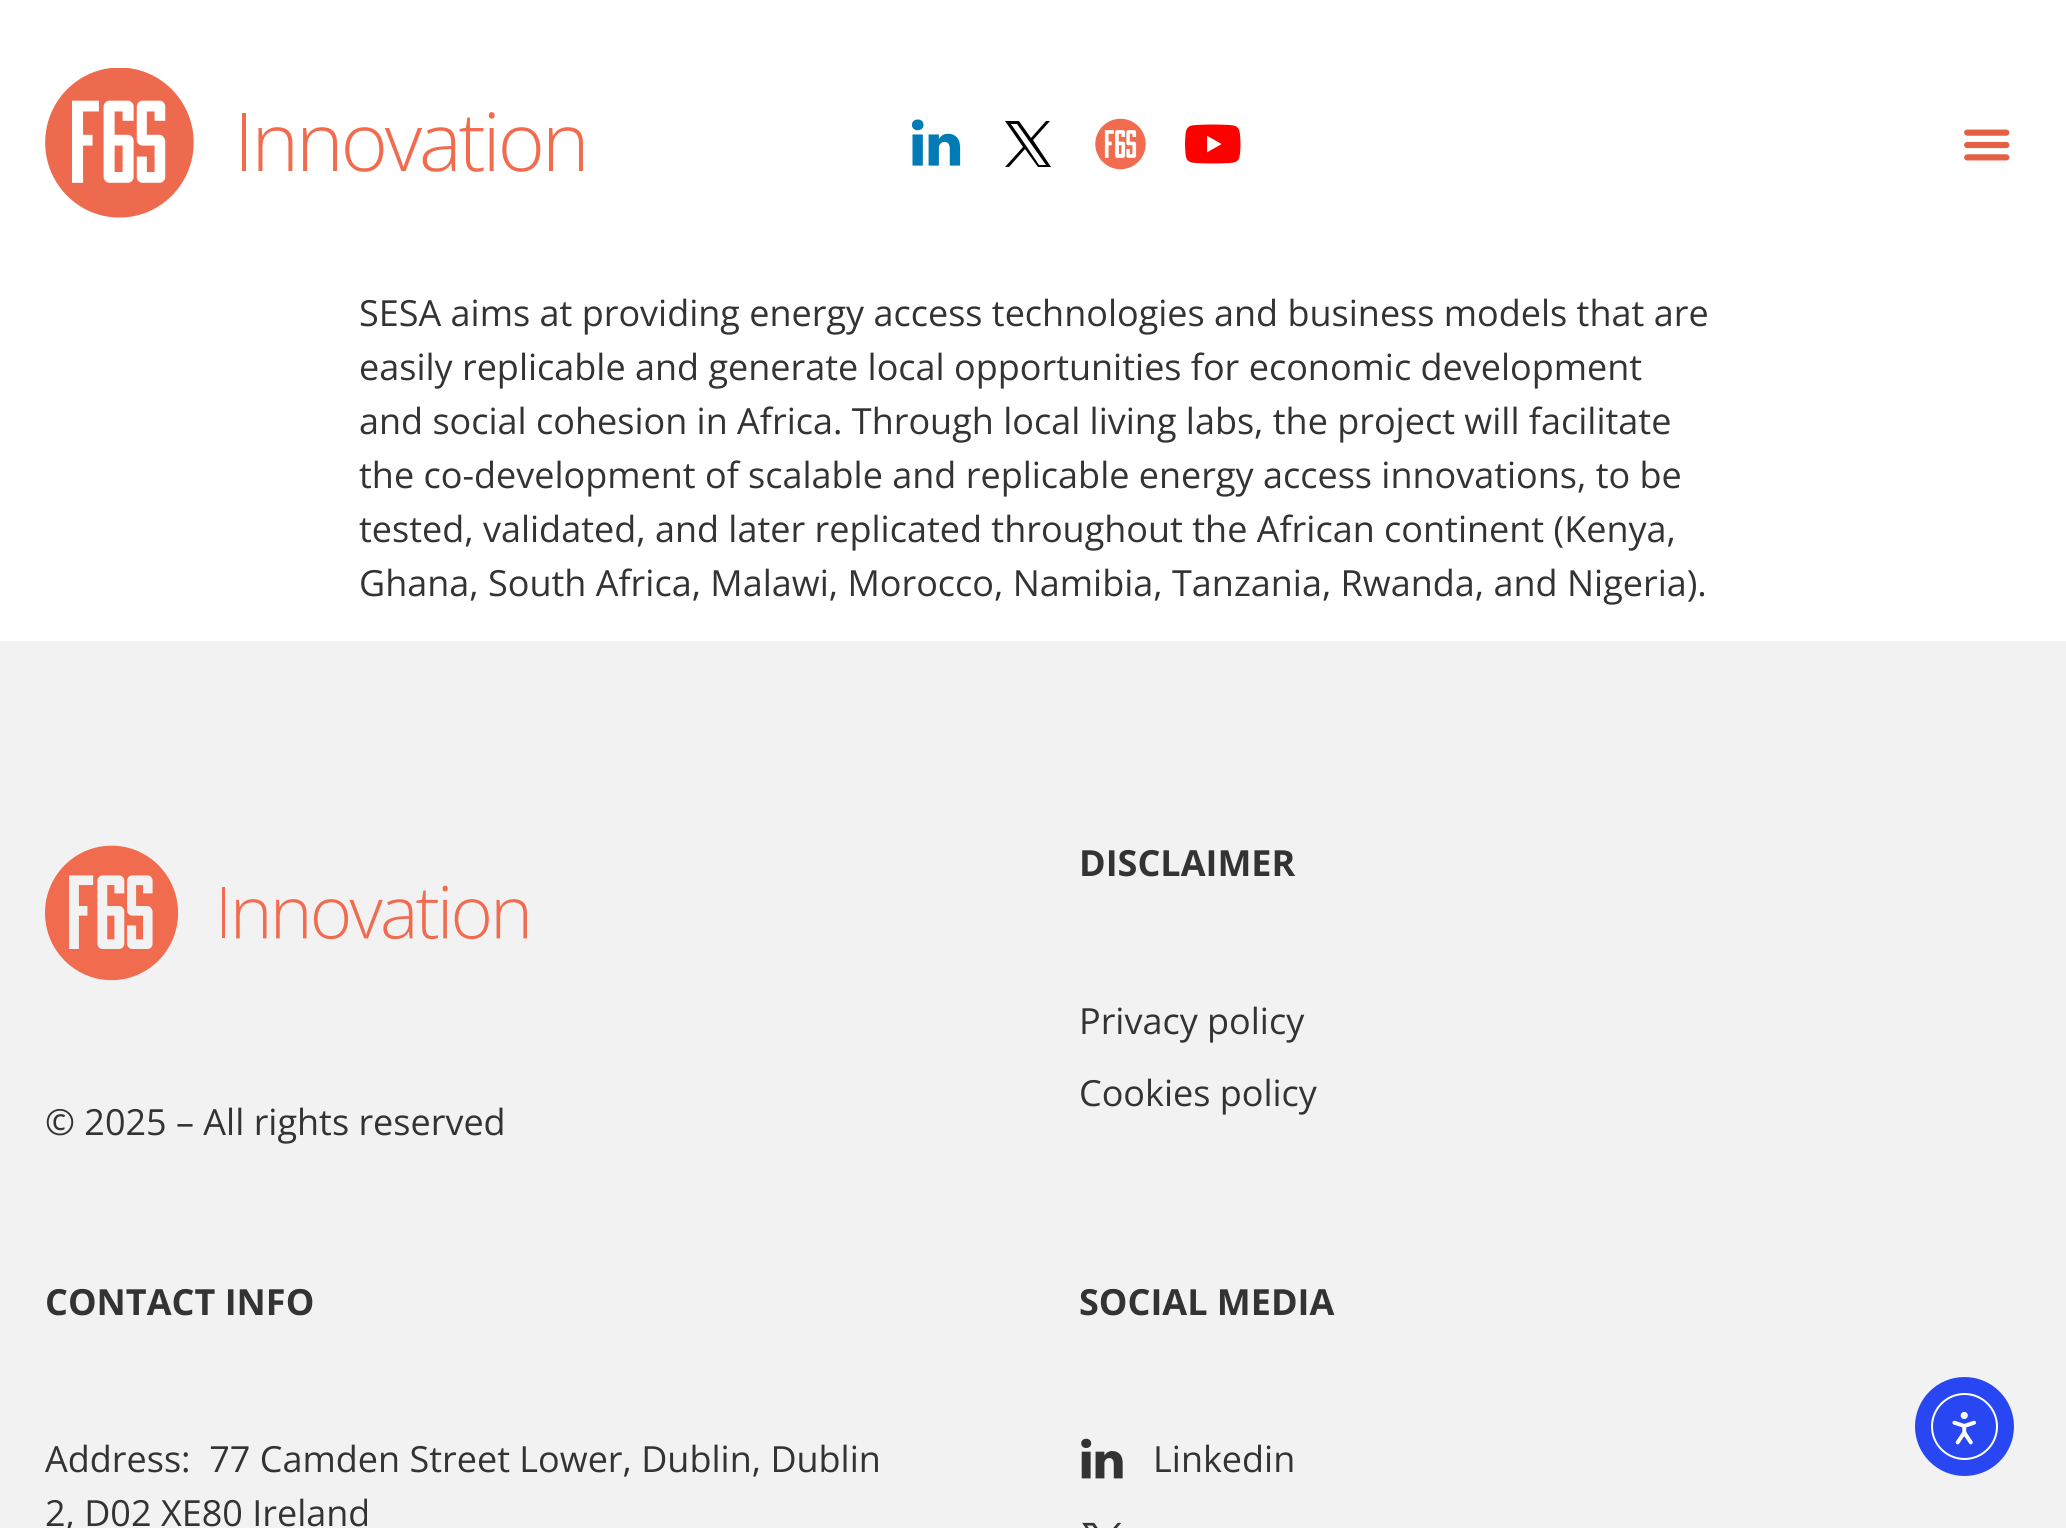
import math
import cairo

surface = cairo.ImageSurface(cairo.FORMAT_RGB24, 2066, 1528)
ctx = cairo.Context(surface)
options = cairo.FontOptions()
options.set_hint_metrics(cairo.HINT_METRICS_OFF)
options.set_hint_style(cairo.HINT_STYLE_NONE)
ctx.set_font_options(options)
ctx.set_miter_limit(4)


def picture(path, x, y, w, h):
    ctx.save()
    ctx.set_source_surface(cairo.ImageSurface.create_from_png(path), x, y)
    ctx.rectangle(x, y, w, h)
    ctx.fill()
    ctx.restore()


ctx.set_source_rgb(1, 1, 1)
ctx.paint()
picture("img1.png", 45, 68, 538, 150)
picture("img2.png", 911, 119, 50, 47)
ctx.set_source_rgb(0, 0, 0)
ctx.new_path()
ctx.move_to(1033, 140)
ctx.line_to(1050, 121)
ctx.line_to(1046, 121)
ctx.line_to(1031, 138)
ctx.line_to(1019, 121)
ctx.line_to(1005, 121)
ctx.line_to(1023, 147)
ctx.line_to(1005, 167)
ctx.line_to(1009, 167)
ctx.line_to(1025, 149)
ctx.line_to(1038, 167)
ctx.line_to(1051, 167)
ctx.close_path()
ctx.move_to(1027, 147)
ctx.line_to(1011, 124)
ctx.line_to(1017, 124)
ctx.line_to(1046, 165)
ctx.line_to(1039, 165)
ctx.close_path()
ctx.fill()
picture("img3.png", 1095, 118, 51, 52)
picture("img4.png", 1185, 124, 56, 40)
picture("img5.png", 1964, 129, 46, 32)
ctx.select_font_face("Open Sans")
ctx.set_font_size(36)
ctx.set_source_rgb(0.2, 0.2, 0.2)
ctx.move_to(359, 326)
ctx.show_text("SESA aims at providing energy access technologies and business models that are")
ctx.move_to(359, 380)
ctx.show_text("easily replicable and generate local opportunities for economic development")
ctx.move_to(359, 434)
ctx.show_text("and social cohesion in Africa. Through local living labs, the project will facilitate")
ctx.move_to(359, 488)
ctx.show_text("the co-development of scalable and replicable energy access innovations, to be")
ctx.move_to(359, 542)
ctx.show_text("tested, validated, and later replicated throughout the African continent (Kenya,")
ctx.move_to(359, 596)
ctx.show_text("Ghana, South Africa, Malawi, Morocco, Namibia, Tanzania, Rwanda, and Nigeria).")
ctx.set_source_rgb(0.949, 0.949, 0.949)
ctx.rectangle(0, 641, 2066, 887)
ctx.fill()
ctx.select_font_face("Open Sans", cairo.FONT_SLANT_NORMAL, cairo.FONT_WEIGHT_BOLD)
ctx.set_source_rgb(0.2, 0.2, 0.2)
ctx.move_to(1079, 876)
ctx.show_text("DISCLAIMER")
ctx.select_font_face("Open Sans")
ctx.move_to(1079, 1034)
ctx.show_text("Privacy policy")
ctx.move_to(1079, 1106)
ctx.show_text("Cookies policy")
picture("img6.png", 45, 845, 482, 136)
ctx.move_to(45, 1135)
ctx.show_text("© 2025 – All rights reserved")
ctx.select_font_face("Open Sans", cairo.FONT_SLANT_NORMAL, cairo.FONT_WEIGHT_BOLD)
ctx.move_to(45, 1315)
ctx.show_text("CONTACT INFO")
ctx.select_font_face("Open Sans")
ctx.move_to(45, 1472)
ctx.show_text("Address:  77 Camden Street Lower, Dublin, Dublin")
ctx.move_to(45, 1526)
ctx.show_text("2, D02 XE80 Ireland")
ctx.select_font_face("Open Sans", cairo.FONT_SLANT_NORMAL, cairo.FONT_WEIGHT_BOLD)
ctx.move_to(1079, 1315)
ctx.show_text("SOCIAL MEDIA")
picture("img7.png", 1081, 1438, 42, 41)
ctx.select_font_face("Open Sans")
ctx.move_to(1153, 1472)
ctx.show_text("Linkedin")
picture("img8.png", 1082, 1522, 40, 6)
ctx.set_source_rgb(0.157, 0.278, 0.953)
ctx.arc(1964.5, 1426.5, 49.5, 0, 2 * math.pi)
ctx.fill()
ctx.arc(1964.5, 1426.5, 32.5, 0, 2 * math.pi)
ctx.set_source_rgb(1, 1, 1)
ctx.stroke()
picture("img9.png", 1952, 1411, 24, 34)
surface.write_to_png("page.png")
